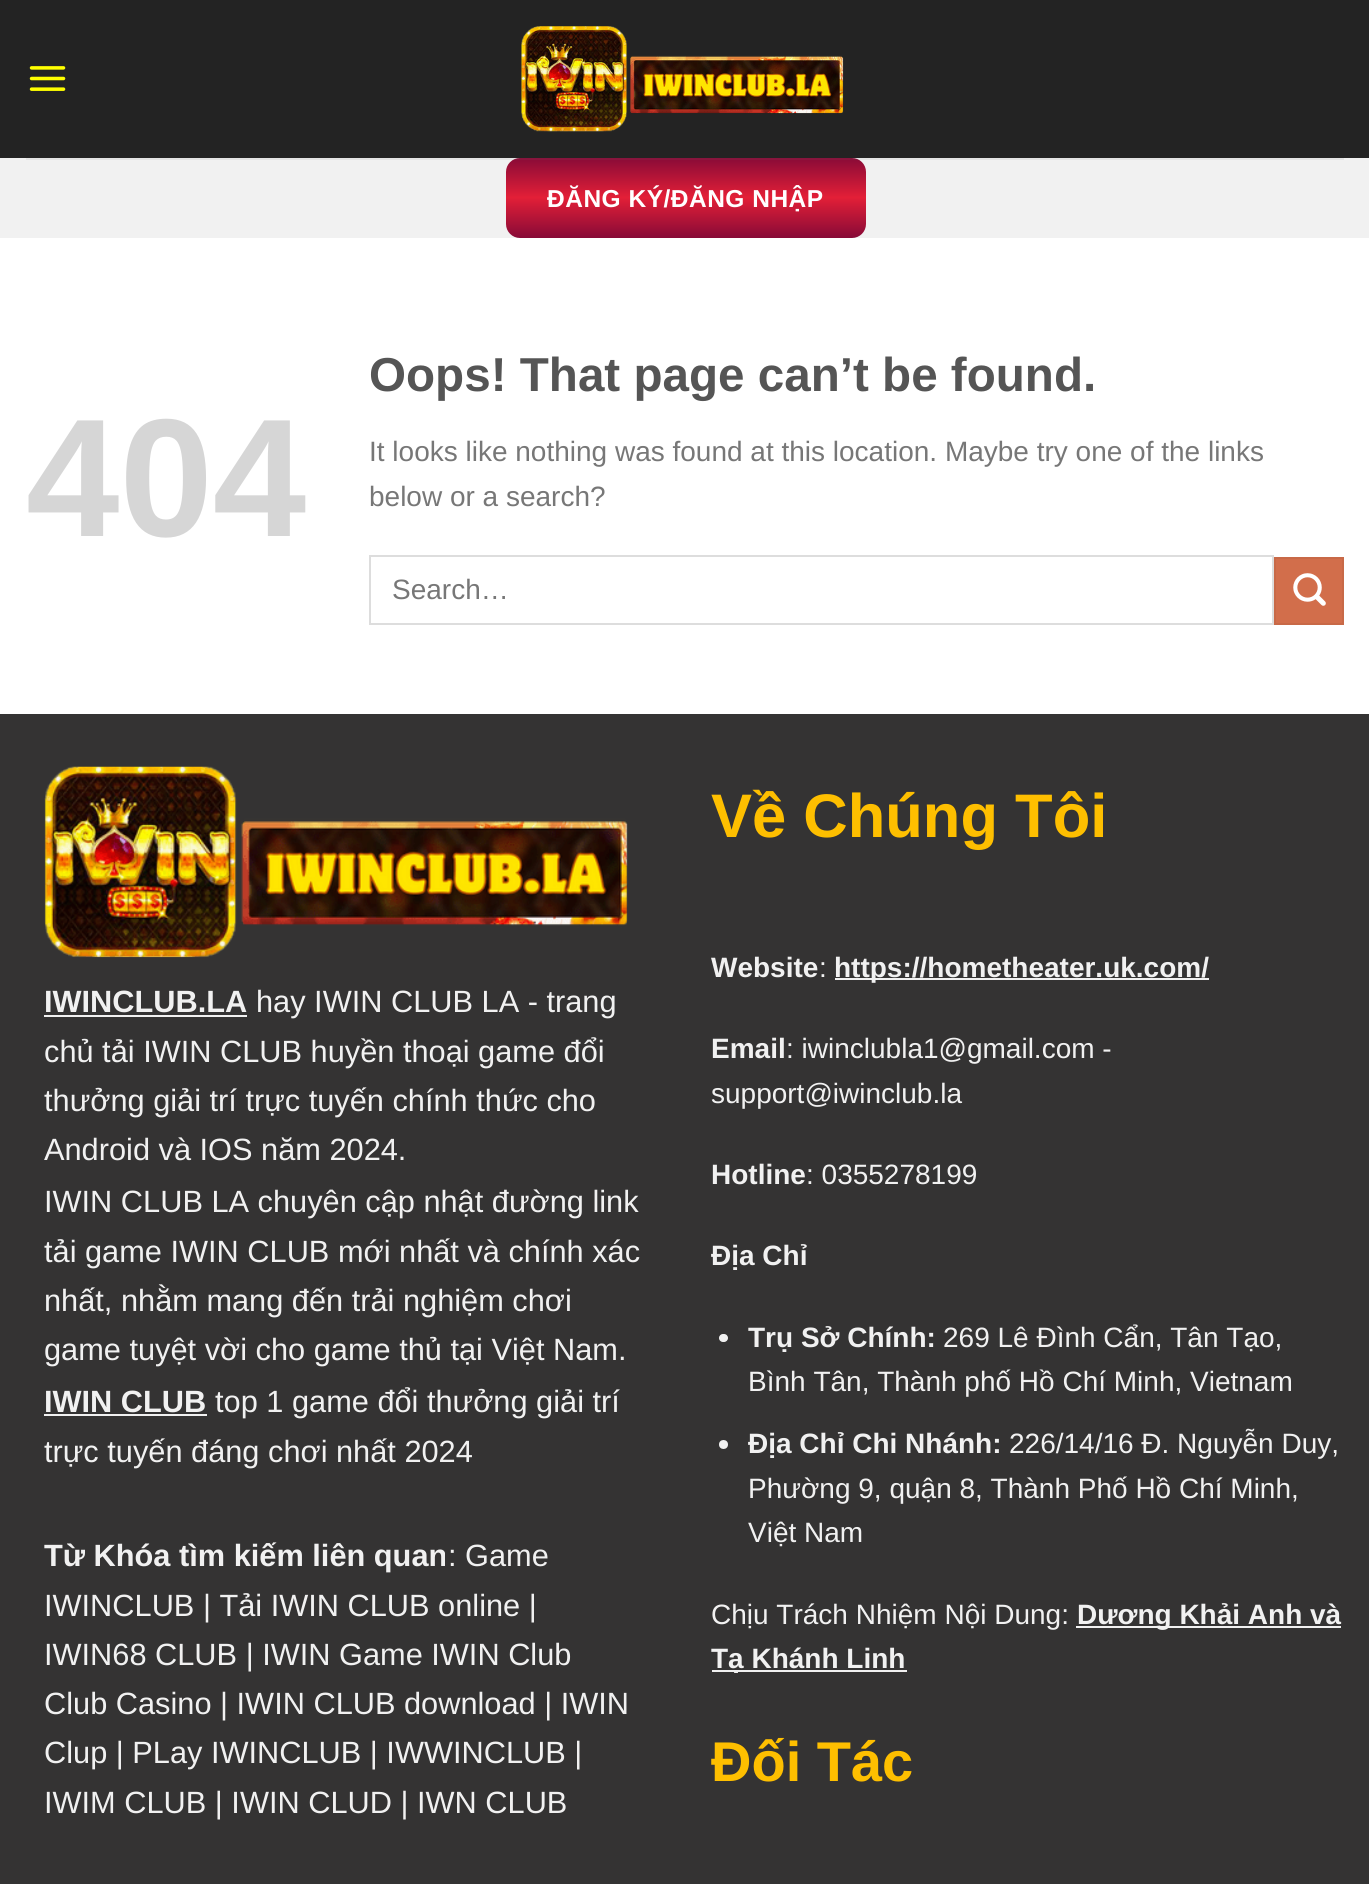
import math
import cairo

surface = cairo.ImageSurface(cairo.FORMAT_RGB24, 1369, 1884)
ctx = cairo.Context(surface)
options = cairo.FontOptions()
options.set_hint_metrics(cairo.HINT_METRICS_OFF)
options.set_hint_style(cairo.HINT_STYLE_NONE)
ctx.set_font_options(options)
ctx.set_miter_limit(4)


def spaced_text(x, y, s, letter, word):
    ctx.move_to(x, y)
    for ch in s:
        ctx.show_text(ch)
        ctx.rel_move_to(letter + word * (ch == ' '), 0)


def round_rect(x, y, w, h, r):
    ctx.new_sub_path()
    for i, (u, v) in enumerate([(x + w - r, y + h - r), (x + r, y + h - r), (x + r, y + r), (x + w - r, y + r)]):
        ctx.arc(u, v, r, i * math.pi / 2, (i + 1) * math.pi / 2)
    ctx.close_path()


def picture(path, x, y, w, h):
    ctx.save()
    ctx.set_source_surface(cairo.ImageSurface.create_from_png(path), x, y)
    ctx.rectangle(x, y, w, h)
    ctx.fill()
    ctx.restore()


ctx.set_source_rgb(1, 1, 1)
ctx.paint()
ctx.set_source_rgb(0.137, 0.137, 0.137)
ctx.rectangle(0, 0, 1369, 158)
ctx.fill()
picture("img1.png", 29, 66, 37, 25)
picture("img2.png", 521, 26, 323, 106)
ctx.set_source_rgb(0.945, 0.945, 0.945)
ctx.rectangle(0, 158, 1369, 80)
ctx.fill()
gradient = cairo.LinearGradient(686, 157, 686, 238)
gradient.add_color_stop_rgba(0, 0.529, 0.039, 0.216, 1)
gradient.add_color_stop_rgba(0.5, 0.89, 0.122, 0.216, 1)
gradient.add_color_stop_rgba(1, 0.529, 0.039, 0.216, 1)
ctx.set_source(gradient)
round_rect(506, 158, 360, 80, 14)
ctx.fill()
ctx.set_source_rgba(0.467, 0.467, 0.467, 0.1)
ctx.rectangle(26, 158, 1318, 2)
ctx.fill()
ctx.select_font_face("Liberation Sans", cairo.FONT_SLANT_NORMAL, cairo.FONT_WEIGHT_BOLD)
ctx.set_font_size(24.5)
ctx.set_source_rgb(1, 1, 1)
spaced_text(547, 207, "ĐĂNG KÝ/ĐĂNG NHẬP", 0.5, 0)
ctx.set_font_size(168)
ctx.set_source_rgb(0.839, 0.839, 0.839)
ctx.move_to(26, 536)
ctx.show_text("404")
ctx.set_font_size(47.6)
ctx.set_source_rgb(0.333, 0.333, 0.333)
ctx.move_to(369, 391)
ctx.show_text("Oops! That page can’t be found.")
ctx.select_font_face("Liberation Sans")
ctx.set_font_size(28)
ctx.set_source_rgb(0.467, 0.467, 0.467)
ctx.move_to(369, 461)
ctx.show_text("It looks like nothing was found at this location. Maybe try one of the links")
ctx.move_to(369, 506)
ctx.show_text("below or a search?")
ctx.rectangle(370, 556, 903, 68)
ctx.set_source_rgb(0.867, 0.867, 0.867)
ctx.stroke()
ctx.set_source_rgb(0.467, 0.467, 0.467)
ctx.move_to(392, 599)
ctx.show_text("Search…")
ctx.set_source_rgb(0.824, 0.431, 0.294)
ctx.rectangle(1275, 558, 68, 66)
ctx.fill_preserve()
ctx.set_source_rgb(0.784, 0.412, 0.278)
ctx.stroke()
picture("img3.png", 1293, 573, 33, 33)
ctx.set_source_rgb(0.204, 0.2, 0.2)
ctx.rectangle(0, 714, 1369, 1170)
ctx.fill()
picture("img4.png", 44, 766, 584, 192)
ctx.select_font_face("Liberation Sans", cairo.FONT_SLANT_NORMAL, cairo.FONT_WEIGHT_BOLD)
ctx.set_font_size(30.75)
ctx.set_source_rgb(0.945, 0.945, 0.945)
ctx.move_to(44, 1012)
ctx.show_text("IWINCLUB.LA")
ctx.rectangle(44, 1015, 203, 2)
ctx.fill()
ctx.select_font_face("Liberation Sans")
ctx.move_to(256, 1012)
ctx.show_text("hay IWIN CLUB LA - trang")
ctx.move_to(44, 1062)
ctx.show_text("chủ tải IWIN CLUB huyền thoại game đổi")
ctx.move_to(44, 1111)
ctx.show_text("thưởng giải trí trực tuyến chính thức cho")
ctx.move_to(44, 1160)
ctx.show_text("Android và IOS năm 2024.")
ctx.move_to(44, 1212)
ctx.show_text("IWIN CLUB LA chuyên cập nhật đường link")
ctx.move_to(44, 1262)
ctx.show_text("tải game IWIN CLUB mới nhất và chính xác")
ctx.move_to(44, 1311)
ctx.show_text("nhất, nhằm mang đến trải nghiệm chơi")
ctx.move_to(44, 1360)
ctx.show_text("game tuyệt vời cho game thủ tại Việt Nam.")
ctx.select_font_face("Liberation Sans", cairo.FONT_SLANT_NORMAL, cairo.FONT_WEIGHT_BOLD)
ctx.move_to(44, 1412)
ctx.show_text("IWIN CLUB")
ctx.rectangle(44, 1414, 163, 2)
ctx.fill()
ctx.select_font_face("Liberation Sans")
ctx.move_to(215, 1412)
ctx.show_text("top 1 game đổi thưởng giải trí")
ctx.move_to(44, 1462)
ctx.show_text("trực tuyến đáng chơi nhất 2024")
ctx.select_font_face("Liberation Sans", cairo.FONT_SLANT_NORMAL, cairo.FONT_WEIGHT_BOLD)
ctx.move_to(44, 1566)
ctx.show_text("Từ Khóa tìm kiếm liên quan")
ctx.select_font_face("Liberation Sans")
ctx.move_to(448, 1566)
ctx.show_text(": Game")
ctx.move_to(44, 1616)
ctx.show_text("IWINCLUB | Tải IWIN CLUB online |")
ctx.move_to(44, 1665)
ctx.show_text("IWIN68 CLUB | IWIN Game IWIN Club")
ctx.move_to(44, 1714)
ctx.show_text("Club Casino | IWIN CLUB download | IWIN")
ctx.move_to(44, 1763)
ctx.show_text("Clup | PLay IWINCLUB | IWWINCLUB |")
ctx.move_to(44, 1813)
ctx.show_text("IWIM CLUB | IWIN CLUD | IWN CLUB")
ctx.select_font_face("Liberation Sans", cairo.FONT_SLANT_NORMAL, cairo.FONT_WEIGHT_BOLD)
ctx.set_font_size(61.5)
ctx.set_source_rgb(0.996, 0.749, 0)
ctx.move_to(711, 837)
ctx.show_text("Về Chúng Tôi")
ctx.set_font_size(28)
ctx.set_source_rgb(0.945, 0.945, 0.945)
ctx.move_to(711, 977)
ctx.show_text("Website")
ctx.select_font_face("Liberation Sans")
ctx.move_to(819, 977)
ctx.show_text(":")
ctx.rectangle(835, 978, 374, 2)
ctx.fill()
ctx.select_font_face("Liberation Sans", cairo.FONT_SLANT_NORMAL, cairo.FONT_WEIGHT_BOLD)
ctx.move_to(834, 977)
ctx.show_text("https://hometheater.uk.com/")
ctx.move_to(711, 1058)
ctx.show_text("Email")
ctx.select_font_face("Liberation Sans")
ctx.move_to(786, 1058)
ctx.show_text(": iwinclubla1@gmail.com -")
ctx.move_to(711, 1103)
ctx.show_text("support@iwinclub.la")
ctx.select_font_face("Liberation Sans", cairo.FONT_SLANT_NORMAL, cairo.FONT_WEIGHT_BOLD)
ctx.move_to(711, 1184)
ctx.show_text("Hotline")
ctx.select_font_face("Liberation Sans")
ctx.move_to(806, 1184)
ctx.show_text(": 0355278199")
ctx.select_font_face("Liberation Sans", cairo.FONT_SLANT_NORMAL, cairo.FONT_WEIGHT_BOLD)
ctx.move_to(711, 1265)
ctx.show_text("Địa Chỉ")
round_rect(719, 1334, 9, 8, 4)
ctx.fill()
ctx.move_to(748, 1347)
ctx.show_text("Trụ Sở Chính:")
ctx.select_font_face("Liberation Sans")
ctx.move_to(943, 1347)
ctx.show_text("269 Lê Đình Cẩn, Tân Tạo,")
ctx.move_to(748, 1391)
ctx.show_text("Bình Tân, Thành phố Hồ Chí Minh, Vietnam")
ctx.new_path()
ctx.arc(723.5, 1444.5, 4.5, 0, 2 * math.pi)
ctx.fill()
ctx.select_font_face("Liberation Sans", cairo.FONT_SLANT_NORMAL, cairo.FONT_WEIGHT_BOLD)
ctx.move_to(748, 1453)
ctx.show_text("Địa Chỉ Chi Nhánh:")
ctx.select_font_face("Liberation Sans")
ctx.move_to(1009, 1453)
ctx.show_text("226/14/16 Đ. Nguyễn Duy,")
ctx.move_to(748, 1498)
ctx.show_text("Phường 9, quận 8, Thành Phố Hồ Chí Minh,")
ctx.move_to(748, 1542)
ctx.show_text("Việt Nam")
ctx.move_to(711, 1624)
ctx.show_text("Chịu Trách Nhiệm Nội Dung:")
ctx.rectangle(1076, 1626, 265, 2)
ctx.fill()
ctx.select_font_face("Liberation Sans", cairo.FONT_SLANT_NORMAL, cairo.FONT_WEIGHT_BOLD)
ctx.move_to(1077, 1624)
ctx.show_text("Dương Khải Anh và")
ctx.rectangle(712, 1670, 195, 2)
ctx.fill()
ctx.move_to(711, 1668)
ctx.show_text("Tạ Khánh Linh")
ctx.set_font_size(56)
ctx.set_source_rgb(0.996, 0.749, 0)
ctx.move_to(711, 1781)
ctx.show_text("Đối Tác")
surface.write_to_png("page.png")
